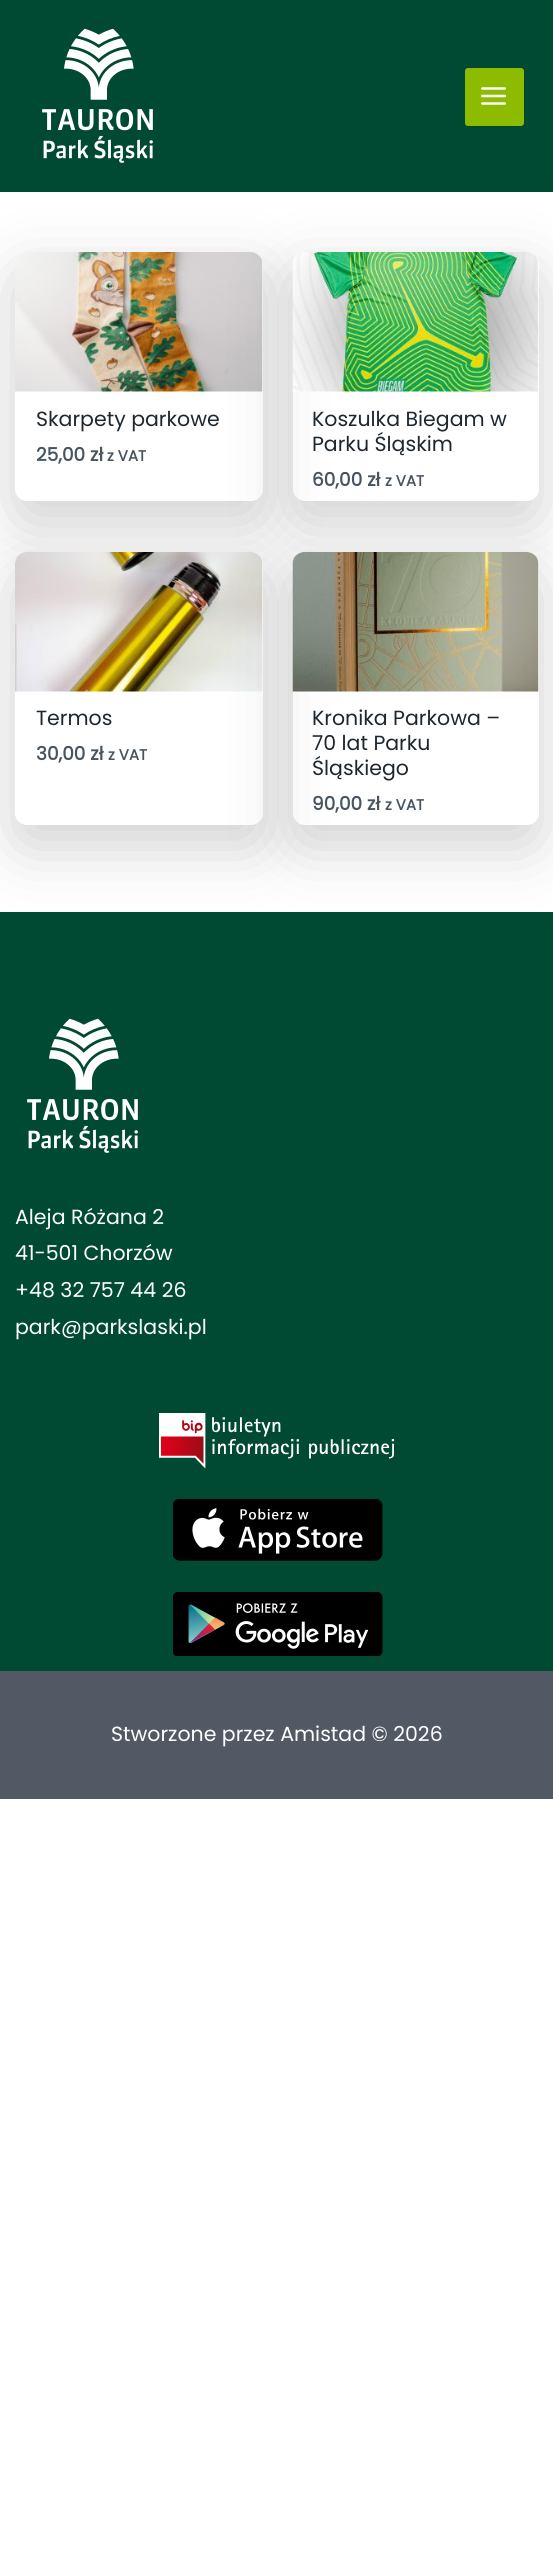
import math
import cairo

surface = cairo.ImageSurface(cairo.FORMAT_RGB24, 553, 2550)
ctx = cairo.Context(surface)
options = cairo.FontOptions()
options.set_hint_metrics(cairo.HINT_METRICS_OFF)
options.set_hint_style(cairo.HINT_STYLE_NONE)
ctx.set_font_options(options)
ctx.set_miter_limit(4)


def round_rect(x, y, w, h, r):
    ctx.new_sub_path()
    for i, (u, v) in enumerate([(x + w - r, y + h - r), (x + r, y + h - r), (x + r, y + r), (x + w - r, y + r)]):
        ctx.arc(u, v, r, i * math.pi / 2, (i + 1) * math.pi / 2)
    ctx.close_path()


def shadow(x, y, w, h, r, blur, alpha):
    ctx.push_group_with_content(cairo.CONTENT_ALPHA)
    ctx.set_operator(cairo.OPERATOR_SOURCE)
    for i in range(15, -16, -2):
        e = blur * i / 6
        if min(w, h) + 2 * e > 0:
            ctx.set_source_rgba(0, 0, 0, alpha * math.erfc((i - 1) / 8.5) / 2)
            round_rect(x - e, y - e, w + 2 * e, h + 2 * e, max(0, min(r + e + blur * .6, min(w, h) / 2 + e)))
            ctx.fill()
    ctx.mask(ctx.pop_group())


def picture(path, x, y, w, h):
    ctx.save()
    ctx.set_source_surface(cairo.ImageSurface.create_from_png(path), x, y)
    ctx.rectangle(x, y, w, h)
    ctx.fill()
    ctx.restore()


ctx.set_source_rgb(1, 1, 1)
ctx.paint()
ctx.save()
ctx.set_fill_rule(cairo.FILL_RULE_EVEN_ODD)
ctx.new_path()
ctx.move_to(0, 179)
ctx.line_to(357, 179)
ctx.line_to(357, 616)
ctx.line_to(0, 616)
ctx.close_path()
ctx.move_to(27, 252)
ctx.line_to(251, 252)
ctx.curve_to(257.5, 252, 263, 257.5, 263, 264)
ctx.line_to(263, 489)
ctx.curve_to(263, 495.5, 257.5, 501, 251, 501)
ctx.line_to(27, 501)
ctx.curve_to(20.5, 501, 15, 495.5, 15, 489)
ctx.line_to(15, 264)
ctx.curve_to(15, 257.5, 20.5, 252, 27, 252)
ctx.close_path()
ctx.clip()
ctx.set_source_rgb(0, 0, 0)
shadow(15, 273, 248, 249, 12, 31, 0.18)
ctx.restore()
picture("img3.png", 15, 252, 248, 140)
ctx.save()
ctx.set_fill_rule(cairo.FILL_RULE_EVEN_ODD)
ctx.new_path()
ctx.move_to(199, 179)
ctx.line_to(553, 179)
ctx.line_to(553, 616)
ctx.line_to(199, 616)
ctx.close_path()
ctx.move_to(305, 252)
ctx.line_to(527, 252)
ctx.curve_to(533.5, 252, 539, 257.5, 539, 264)
ctx.line_to(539, 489)
ctx.curve_to(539, 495.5, 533.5, 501, 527, 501)
ctx.line_to(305, 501)
ctx.curve_to(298.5, 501, 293, 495.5, 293, 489)
ctx.line_to(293, 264)
ctx.curve_to(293, 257.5, 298.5, 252, 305, 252)
ctx.close_path()
ctx.clip()
ctx.set_source_rgb(0, 0, 0)
shadow(293, 273, 246, 249, 12, 31, 0.18)
ctx.restore()
ctx.set_source_rgb(0, 0.286, 0.2)
ctx.rectangle(0, 0, 553, 192)
ctx.fill()
picture("img1.png", 42, 28, 111, 135)
ctx.set_source_rgb(0.549, 0.733, 0)
round_rect(465, 68, 59, 58, 3)
ctx.fill()
picture("img2.png", 481, 87, 25, 18)
ctx.select_font_face("Poppins")
ctx.set_font_size(20.5)
ctx.set_source_rgb(0.118, 0.153, 0.18)
ctx.move_to(36, 426)
ctx.show_text("Skarpety parkowe")
ctx.select_font_face("Poppins", cairo.FONT_SLANT_NORMAL, cairo.FONT_WEIGHT_BOLD)
ctx.set_font_size(18.5)
ctx.set_source_rgb(0.282, 0.329, 0.376)
ctx.move_to(36, 461)
ctx.show_text("25,00 zł")
ctx.set_font_size(15)
ctx.move_to(107, 461)
ctx.show_text("z VAT")
picture("img4.png", 292, 252, 247, 140)
ctx.select_font_face("Poppins")
ctx.set_font_size(20.5)
ctx.set_source_rgb(0.118, 0.153, 0.18)
ctx.move_to(312, 426)
ctx.show_text("Koszulka Biegam w")
ctx.move_to(312, 451)
ctx.show_text("Parku Śląskim")
ctx.select_font_face("Poppins", cairo.FONT_SLANT_NORMAL, cairo.FONT_WEIGHT_BOLD)
ctx.set_font_size(18.5)
ctx.set_source_rgb(0.282, 0.329, 0.376)
ctx.move_to(312, 486)
ctx.show_text("60,00 zł")
ctx.set_font_size(15)
ctx.move_to(385, 486)
ctx.show_text("z VAT")
ctx.save()
ctx.set_fill_rule(cairo.FILL_RULE_EVEN_ODD)
ctx.new_path()
ctx.move_to(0, 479)
ctx.line_to(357, 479)
ctx.line_to(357, 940)
ctx.line_to(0, 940)
ctx.close_path()
ctx.move_to(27, 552)
ctx.line_to(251, 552)
ctx.curve_to(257.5, 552, 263, 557.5, 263, 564)
ctx.line_to(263, 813)
ctx.curve_to(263, 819.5, 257.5, 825, 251, 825)
ctx.line_to(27, 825)
ctx.curve_to(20.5, 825, 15, 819.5, 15, 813)
ctx.line_to(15, 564)
ctx.curve_to(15, 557.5, 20.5, 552, 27, 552)
ctx.close_path()
ctx.clip()
ctx.set_source_rgb(0, 0, 0)
shadow(15, 573, 248, 273, 12, 31, 0.18)
ctx.restore()
picture("img5.png", 15, 552, 248, 140)
ctx.select_font_face("Poppins")
ctx.set_font_size(20.5)
ctx.set_source_rgb(0.118, 0.153, 0.18)
ctx.move_to(36, 725)
ctx.show_text("Termos")
ctx.select_font_face("Poppins", cairo.FONT_SLANT_NORMAL, cairo.FONT_WEIGHT_BOLD)
ctx.set_font_size(18.5)
ctx.set_source_rgb(0.282, 0.329, 0.376)
ctx.move_to(36, 760)
ctx.show_text("30,00 zł")
ctx.set_font_size(15)
ctx.move_to(108, 760)
ctx.show_text("z VAT")
ctx.save()
ctx.set_fill_rule(cairo.FILL_RULE_EVEN_ODD)
ctx.new_path()
ctx.move_to(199, 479)
ctx.line_to(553, 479)
ctx.line_to(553, 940)
ctx.line_to(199, 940)
ctx.close_path()
ctx.move_to(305, 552)
ctx.line_to(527, 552)
ctx.curve_to(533.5, 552, 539, 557.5, 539, 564)
ctx.line_to(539, 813)
ctx.curve_to(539, 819.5, 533.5, 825, 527, 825)
ctx.line_to(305, 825)
ctx.curve_to(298.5, 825, 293, 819.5, 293, 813)
ctx.line_to(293, 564)
ctx.curve_to(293, 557.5, 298.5, 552, 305, 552)
ctx.close_path()
ctx.clip()
ctx.set_source_rgb(0, 0, 0)
shadow(293, 573, 246, 273, 12, 31, 0.18)
ctx.restore()
picture("img6.png", 292, 552, 247, 140)
ctx.select_font_face("Poppins")
ctx.set_font_size(20.5)
ctx.set_source_rgb(0.118, 0.153, 0.18)
ctx.move_to(312, 725)
ctx.show_text("Kronika Parkowa –")
ctx.move_to(312, 750)
ctx.show_text("70 lat Parku")
ctx.move_to(312, 775)
ctx.show_text("Śląskiego")
ctx.select_font_face("Poppins", cairo.FONT_SLANT_NORMAL, cairo.FONT_WEIGHT_BOLD)
ctx.set_font_size(18.5)
ctx.set_source_rgb(0.282, 0.329, 0.376)
ctx.move_to(312, 810)
ctx.show_text("90,00 zł")
ctx.set_font_size(15)
ctx.move_to(385, 810)
ctx.show_text("z VAT")
ctx.set_source_rgb(0, 0.286, 0.2)
ctx.rectangle(0, 912, 553, 759)
ctx.fill()
picture("img1.png", 27, 1018, 111, 135)
ctx.select_font_face("Poppins")
ctx.set_font_size(20.5)
ctx.set_source_rgb(1, 1, 1)
ctx.move_to(15, 1224)
ctx.show_text("Aleja Różana 2")
ctx.move_to(15, 1260)
ctx.show_text("41-501 Chorzów")
ctx.move_to(15, 1297)
ctx.show_text("+48 32 757 44 26")
ctx.move_to(15, 1334)
ctx.show_text("park@parkslaski.pl")
picture("img7.png", 159, 1413, 236, 56)
picture("img8.png", 173, 1499, 210, 62)
picture("img9.png", 173, 1592, 210, 64)
ctx.set_source_rgb(0.322, 0.349, 0.392)
ctx.rectangle(0, 1671, 553, 128)
ctx.fill()
ctx.set_source_rgb(1, 1, 1)
ctx.move_to(111, 1741)
ctx.show_text("Stworzone przez Amistad © 2026")
surface.write_to_png("page.png")
